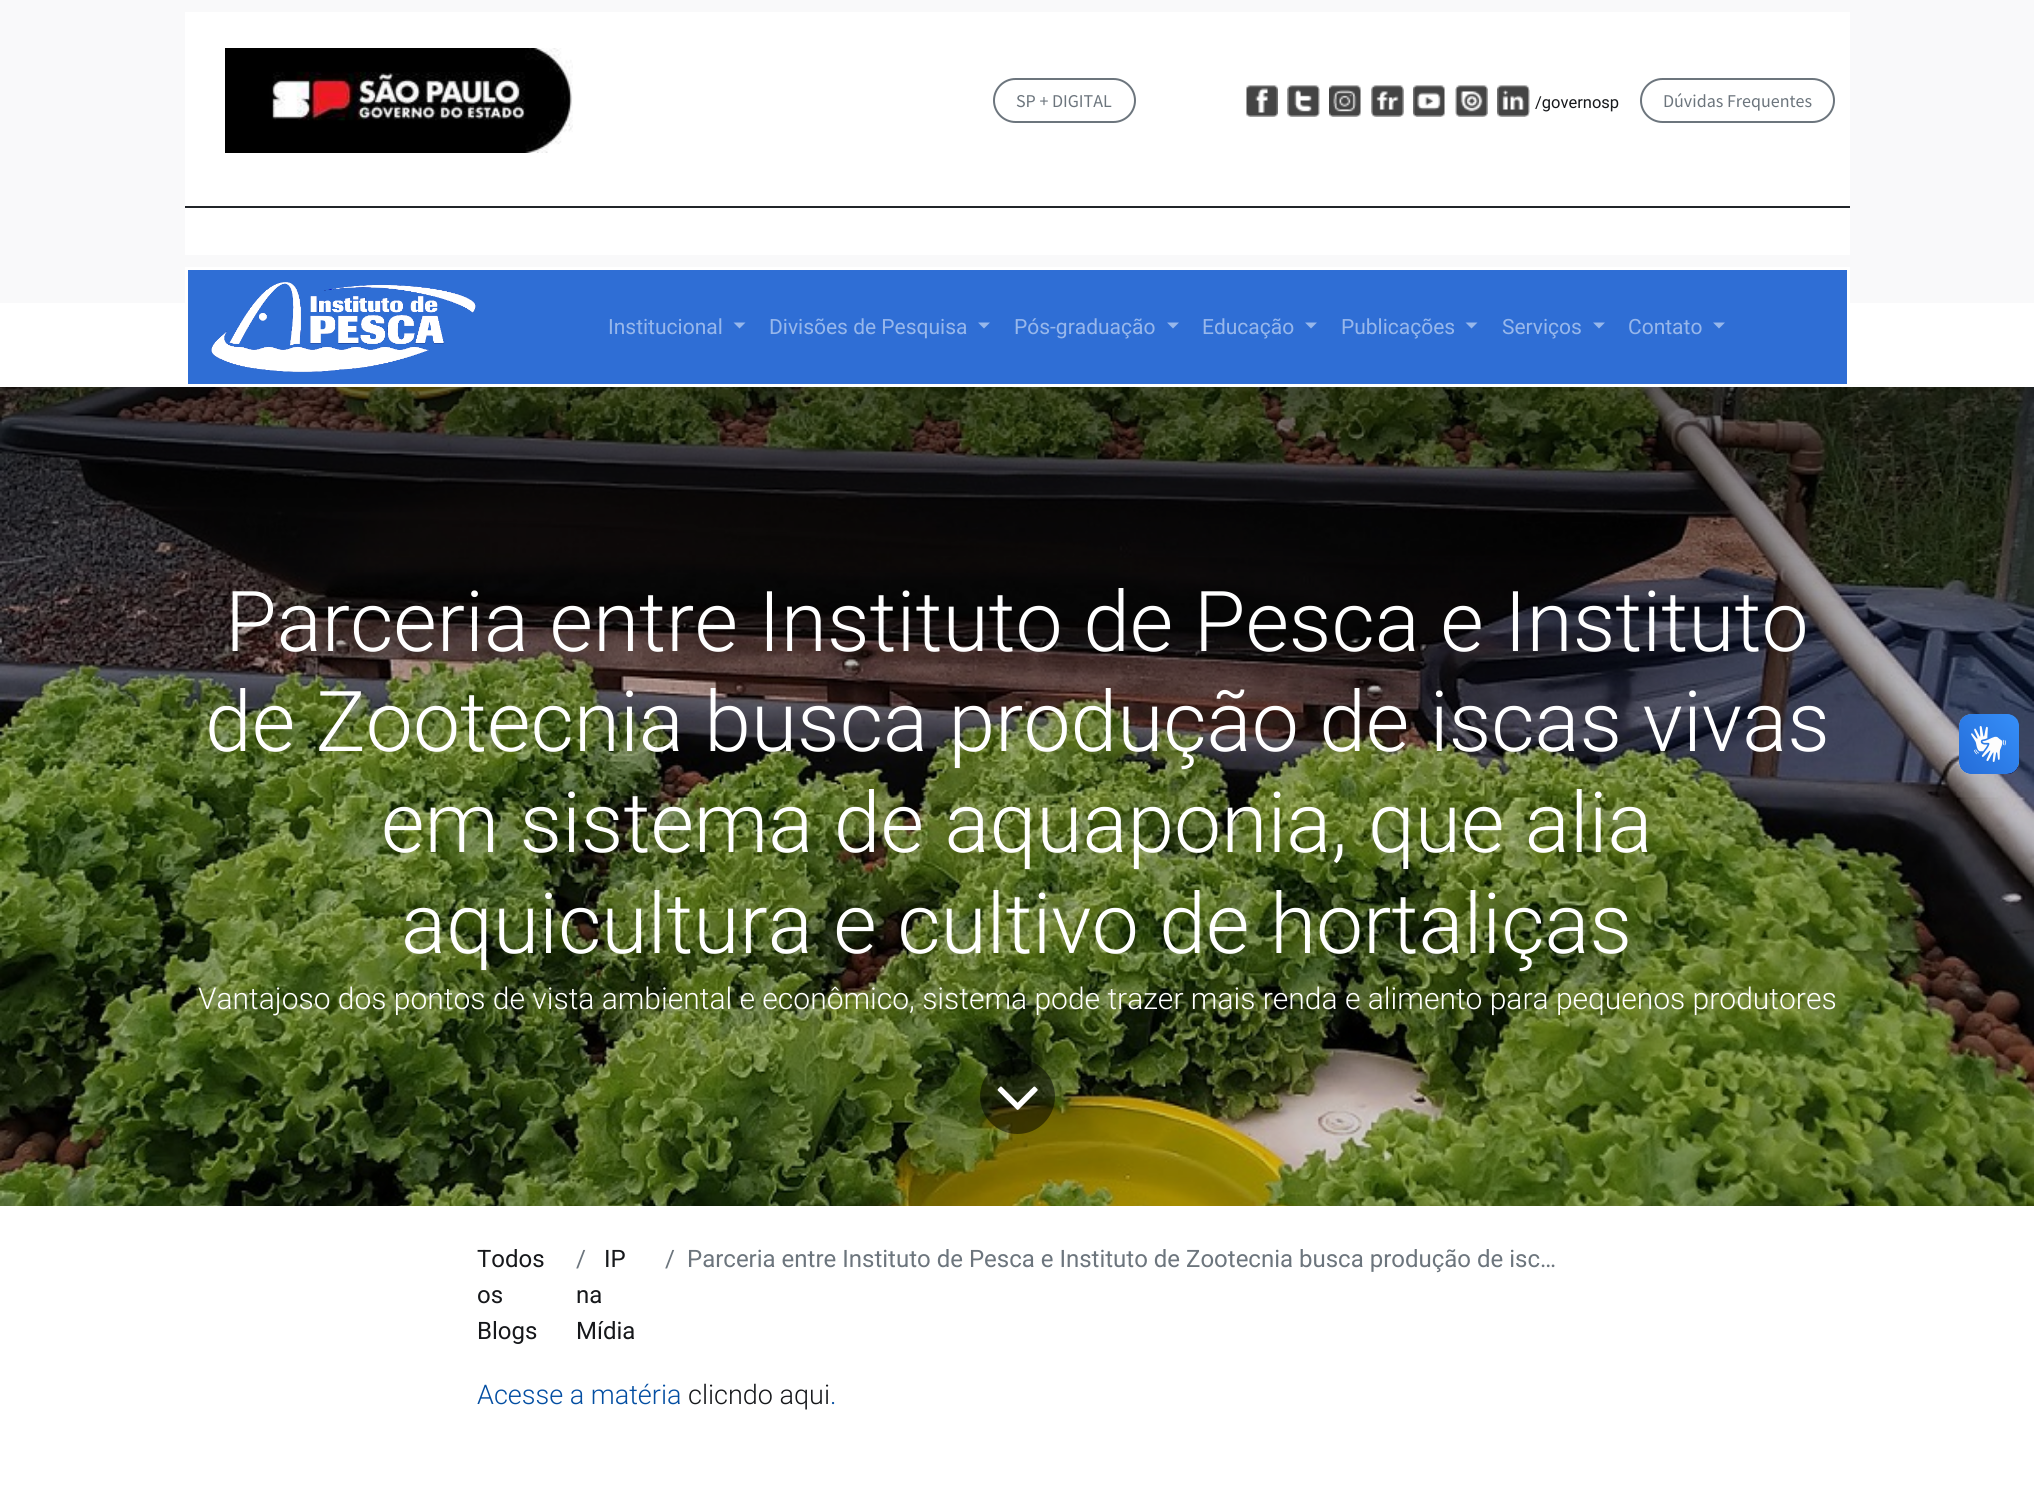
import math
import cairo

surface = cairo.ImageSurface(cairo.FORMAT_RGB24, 2034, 1488)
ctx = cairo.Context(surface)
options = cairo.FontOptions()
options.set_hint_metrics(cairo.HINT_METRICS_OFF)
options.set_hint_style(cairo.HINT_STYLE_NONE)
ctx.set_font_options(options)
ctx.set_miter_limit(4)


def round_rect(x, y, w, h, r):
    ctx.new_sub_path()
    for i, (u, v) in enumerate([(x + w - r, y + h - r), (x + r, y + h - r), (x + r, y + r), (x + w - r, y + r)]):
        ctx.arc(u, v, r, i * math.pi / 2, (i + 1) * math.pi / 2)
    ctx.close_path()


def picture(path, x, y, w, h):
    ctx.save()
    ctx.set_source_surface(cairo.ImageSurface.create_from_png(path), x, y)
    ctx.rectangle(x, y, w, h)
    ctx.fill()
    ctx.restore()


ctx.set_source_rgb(1, 1, 1)
ctx.paint()
ctx.set_source_rgb(0.973, 0.976, 0.98)
ctx.rectangle(0, 0, 2034, 303)
ctx.fill()
ctx.set_source_rgb(1, 1, 1)
ctx.rectangle(185, 12, 1665, 243)
ctx.fill()
picture("img1.png", 225, 48, 348, 105)
round_rect(994, 79, 141, 43, 21.5)
ctx.set_source_rgb(0.424, 0.459, 0.49)
ctx.stroke()
ctx.select_font_face("Source Sans Pro")
ctx.set_font_size(18)
ctx.move_to(1016, 107)
ctx.show_text("SP + DIGITAL")
picture("img2.png", 1246, 85, 32, 32)
picture("img3.png", 1287, 85, 33, 32)
picture("img4.png", 1329, 85, 32, 32)
picture("img5.png", 1371, 85, 33, 32)
picture("img6.png", 1413, 85, 32, 32)
picture("img7.png", 1455, 85, 33, 32)
picture("img8.png", 1497, 85, 33, 32)
ctx.select_font_face("Roboto")
ctx.set_font_size(16.5)
ctx.set_source_rgb(0.086, 0.094, 0.106)
ctx.move_to(1535, 108)
ctx.show_text("/governosp")
round_rect(1641, 79, 193, 43, 21.5)
ctx.set_source_rgb(0.424, 0.459, 0.49)
ctx.stroke()
ctx.select_font_face("Source Sans Pro")
ctx.set_font_size(18)
ctx.move_to(1663, 107)
ctx.show_text("Dúvidas Frequentes")
ctx.set_source_rgb(0.129, 0.145, 0.161)
ctx.rectangle(185, 206, 1665, 2)
ctx.fill()
ctx.set_source_rgb(0.184, 0.431, 0.835)
ctx.rectangle(186.5, 268.5, 1662, 117)
ctx.fill_preserve()
ctx.set_source_rgb(1, 1, 1)
ctx.set_line_width(3)
ctx.stroke()
picture("img9.png", 211, 282, 265, 90)
ctx.select_font_face("Roboto")
ctx.set_font_size(21)
ctx.set_source_rgb(0.592, 0.718, 0.918)
ctx.move_to(608, 334)
ctx.show_text("Institucional")
ctx.new_path()
ctx.move_to(733.5, 322.5)
ctx.line_to(745.5, 322.5)
ctx.line_to(739.5, 328.5)
ctx.close_path()
ctx.fill()
ctx.move_to(769, 334)
ctx.show_text("Divisões de Pesquisa")
ctx.new_path()
ctx.move_to(978, 322.5)
ctx.line_to(990, 322.5)
ctx.line_to(984, 328.5)
ctx.close_path()
ctx.fill()
ctx.move_to(1014, 334)
ctx.show_text("Pós-graduação")
ctx.new_path()
ctx.move_to(1167, 322.5)
ctx.line_to(1179, 322.5)
ctx.line_to(1173, 328.5)
ctx.close_path()
ctx.fill()
ctx.move_to(1202, 334)
ctx.show_text("Educação")
ctx.new_path()
ctx.move_to(1305, 322.5)
ctx.line_to(1317, 322.5)
ctx.line_to(1311, 328.5)
ctx.close_path()
ctx.fill()
ctx.move_to(1341, 334)
ctx.show_text("Publicações")
ctx.new_path()
ctx.move_to(1465.5, 322.5)
ctx.line_to(1477.5, 322.5)
ctx.line_to(1471.5, 328.5)
ctx.close_path()
ctx.fill()
ctx.move_to(1502, 334)
ctx.show_text("Serviços")
ctx.new_path()
ctx.move_to(1593, 322.5)
ctx.line_to(1605, 322.5)
ctx.line_to(1599, 328.5)
ctx.close_path()
ctx.fill()
ctx.move_to(1628, 334)
ctx.show_text("Contato")
ctx.new_path()
ctx.move_to(1713, 322.5)
ctx.line_to(1725, 322.5)
ctx.line_to(1719, 328.5)
ctx.close_path()
ctx.fill()
picture("img10.png", 0, 387, 2034, 819)
ctx.select_font_face("Roboto Light")
ctx.set_font_size(84)
ctx.set_source_rgb(1, 1, 1)
ctx.move_to(225, 651)
ctx.show_text("Parceria entre Instituto de Pesca e Instituto")
ctx.move_to(205, 751)
ctx.show_text("de Zootecnia busca produção de iscas vivas")
ctx.move_to(381, 852)
ctx.show_text("em sistema de aquaponia, que alia")
ctx.move_to(401, 953)
ctx.show_text("aquicultura e cultivo de hortaliças")
ctx.set_font_size(30)
ctx.move_to(198, 1009)
ctx.show_text("Vantajoso dos pontos de vista ambiental e econômico, sistema pode trazer mais renda e alimento para pequenos produtores")
ctx.set_source_rgba(0, 0, 0, 0.5)
ctx.new_path()
ctx.arc(1017.5, 1096.5, 37.5, 0, 2 * math.pi)
ctx.fill()
picture("img11.png", 997, 1086, 41, 24)
ctx.select_font_face("Roboto")
ctx.set_font_size(24)
ctx.set_source_rgb(0.086, 0.094, 0.106)
ctx.move_to(477, 1267)
ctx.show_text("Todos")
ctx.move_to(477, 1303)
ctx.show_text("os")
ctx.move_to(477, 1339)
ctx.show_text("Blogs")
ctx.set_source_rgb(0.424, 0.459, 0.49)
ctx.move_to(576, 1267)
ctx.show_text("/")
ctx.set_source_rgb(0.086, 0.094, 0.106)
ctx.move_to(604, 1267)
ctx.show_text("IP")
ctx.move_to(576, 1303)
ctx.show_text("na")
ctx.move_to(576, 1339)
ctx.show_text("Mídia")
ctx.set_source_rgb(0.424, 0.459, 0.49)
ctx.move_to(665, 1267)
ctx.show_text("/")
ctx.move_to(687, 1267)
ctx.show_text("Parceria entre Instituto de Pesca e Instituto de Zootecnia busca produção de isc…")
ctx.select_font_face("Roboto Light")
ctx.set_font_size(27)
ctx.set_source_rgb(0.012, 0.306, 0.635)
ctx.move_to(477, 1404)
ctx.show_text("Acesse a matéria")
ctx.set_source_rgb(0.086, 0.094, 0.106)
ctx.move_to(688, 1404)
ctx.show_text("clicndo aqui")
ctx.set_source_rgb(0.012, 0.306, 0.635)
ctx.move_to(830, 1404)
ctx.show_text(".")
picture("img12.png", 1959, 714, 60, 60)
picture("img13.png", 1959, 714, 60, 60)
surface.write_to_png("page.png")
